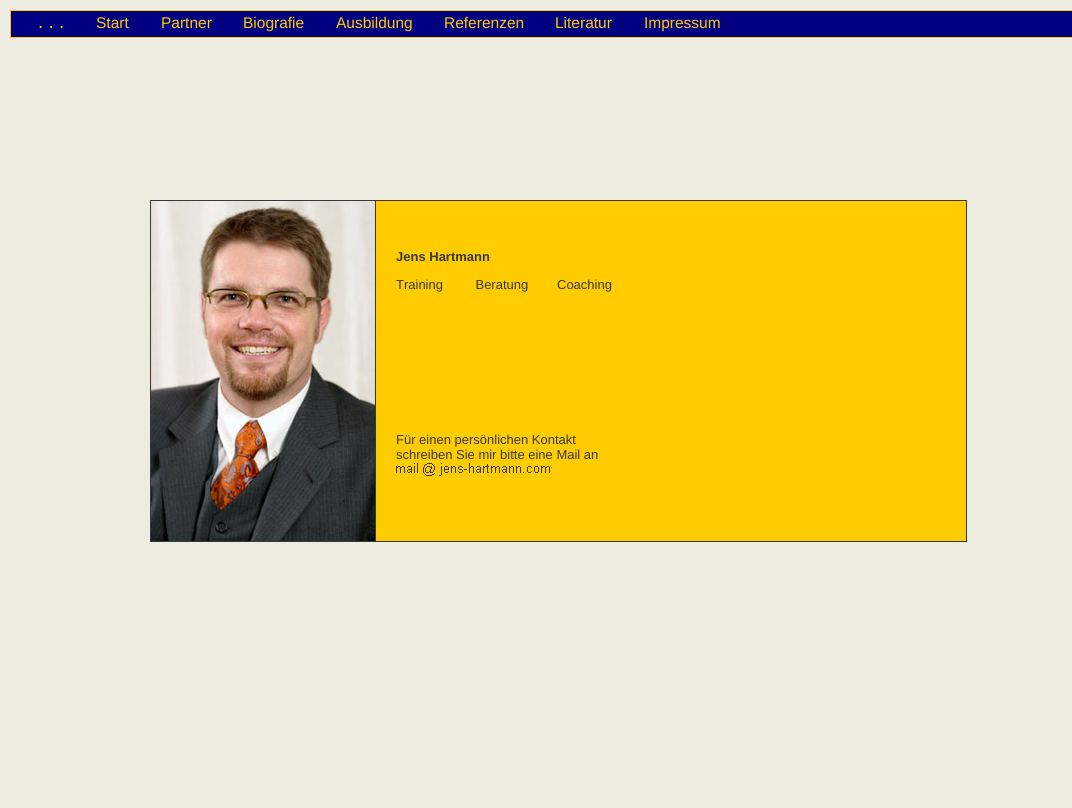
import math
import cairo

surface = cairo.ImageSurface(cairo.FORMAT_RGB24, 1072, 808)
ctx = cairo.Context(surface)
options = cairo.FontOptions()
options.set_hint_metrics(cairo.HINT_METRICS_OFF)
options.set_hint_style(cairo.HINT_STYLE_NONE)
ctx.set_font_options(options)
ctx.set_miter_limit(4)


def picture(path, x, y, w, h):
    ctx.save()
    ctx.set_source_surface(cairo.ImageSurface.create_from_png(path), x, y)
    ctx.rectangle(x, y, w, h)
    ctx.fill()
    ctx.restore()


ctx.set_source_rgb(0.929, 0.925, 0.878)
ctx.paint()
ctx.set_source_rgb(0, 0, 0.502)
ctx.rectangle(10.5, 10.5, 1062, 27)
ctx.fill_preserve()
ctx.set_source_rgb(1, 0.8, 0)
ctx.set_line_width(1)
ctx.stroke()
ctx.select_font_face("Liberation Sans")
ctx.set_font_size(19)
ctx.move_to(38, 28)
ctx.show_text(". . .")
ctx.set_font_size(15.5)
ctx.move_to(96, 28)
ctx.show_text("Start")
ctx.move_to(161, 28)
ctx.show_text("Partner")
ctx.move_to(243, 28)
ctx.show_text("Biografie")
ctx.move_to(336, 28)
ctx.show_text("Ausbildung")
ctx.move_to(444, 28)
ctx.show_text("Referenzen")
ctx.move_to(555, 28)
ctx.show_text("Literatur")
ctx.move_to(644, 28)
ctx.show_text("Impressum")
picture("img1.png", 151, 201, 224, 340)
ctx.rectangle(150.5, 200.5, 266, 341)
ctx.set_source_rgb(0.22, 0.22, 0.22)
ctx.stroke()
ctx.set_source_rgb(1, 0.8, 0)
ctx.rectangle(375.5, 200.5, 591, 341)
ctx.fill_preserve()
ctx.set_source_rgb(0.22, 0.22, 0.22)
ctx.stroke()
ctx.select_font_face("Liberation Sans", cairo.FONT_SLANT_NORMAL, cairo.FONT_WEIGHT_BOLD)
ctx.set_font_size(13)
ctx.move_to(396, 261)
ctx.show_text("Jens Hartmann")
ctx.select_font_face("Liberation Sans")
ctx.move_to(396, 289)
ctx.show_text("Training         Beratung")
ctx.move_to(557, 289)
ctx.show_text("Coaching")
ctx.move_to(396, 444)
ctx.show_text("Für einen persönlichen Kontakt")
ctx.move_to(396, 459)
ctx.show_text("schreiben Sie mir bitte eine Mail an")
picture("img2.png", 396, 462, 155, 15)
surface.write_to_png("page.png")
